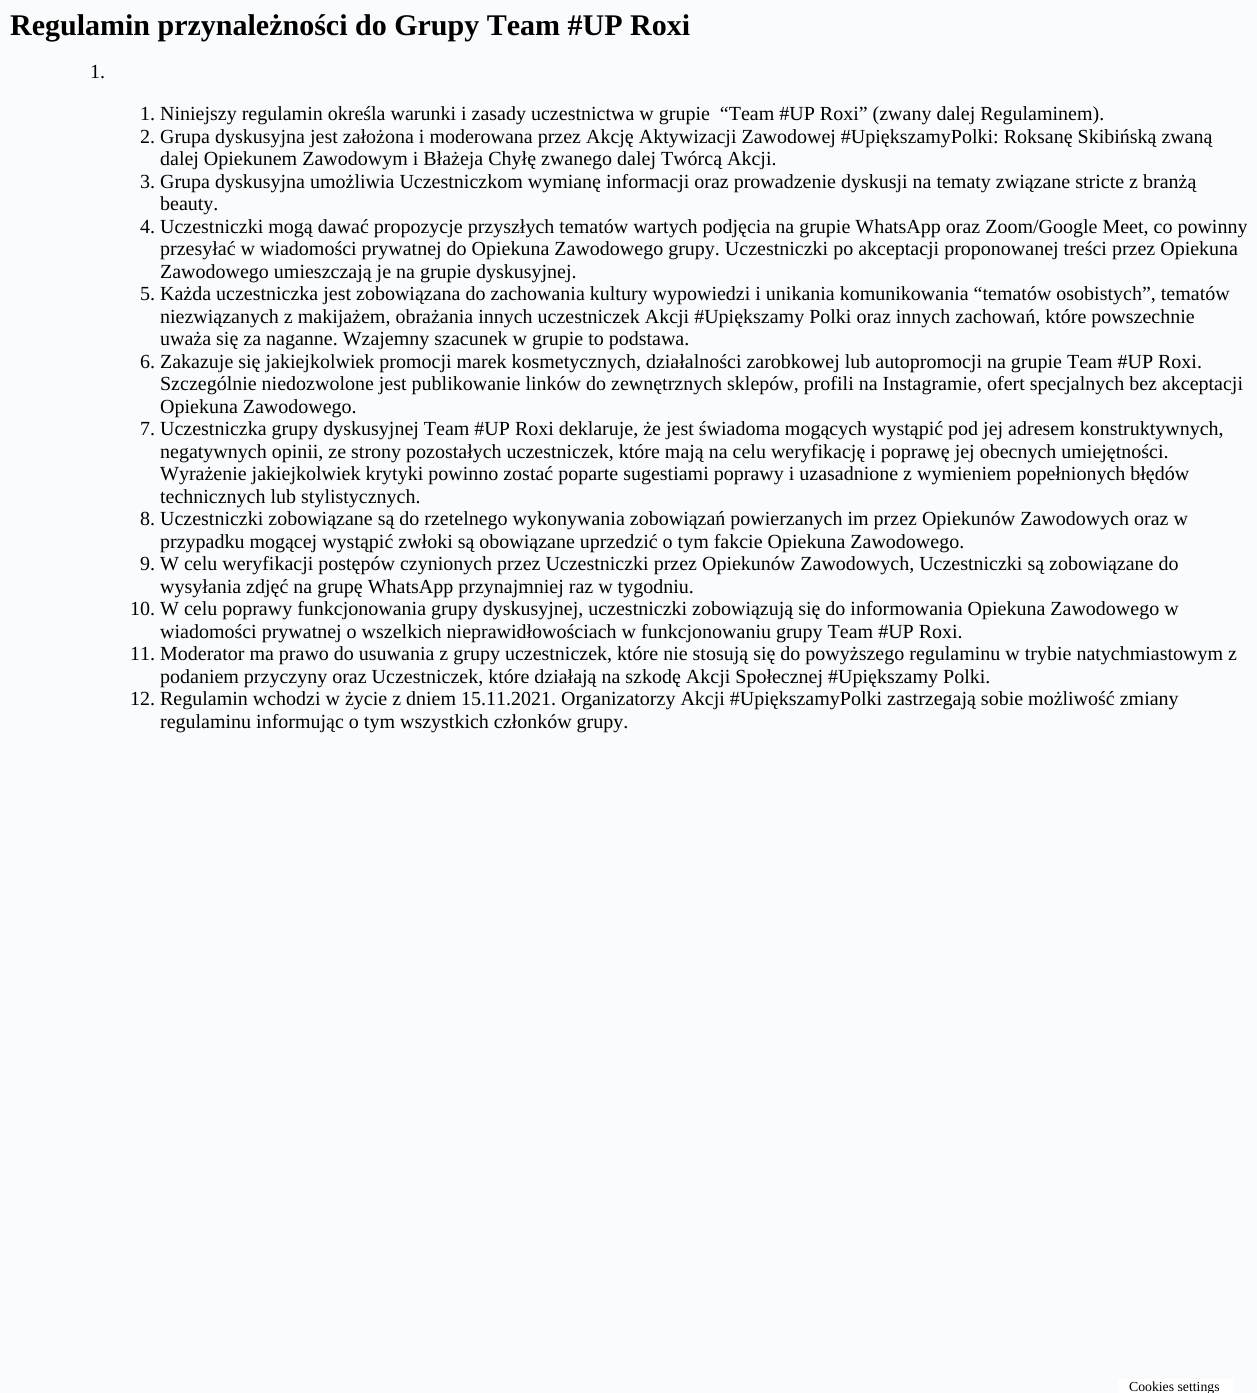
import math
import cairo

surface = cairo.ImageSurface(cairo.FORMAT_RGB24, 1257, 1393)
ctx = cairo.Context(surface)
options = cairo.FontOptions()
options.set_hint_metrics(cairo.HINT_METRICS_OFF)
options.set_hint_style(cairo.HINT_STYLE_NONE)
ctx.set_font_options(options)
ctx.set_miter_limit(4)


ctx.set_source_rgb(0.98, 0.984, 0.988)
ctx.paint()
ctx.select_font_face("Liberation Serif", cairo.FONT_SLANT_NORMAL, cairo.FONT_WEIGHT_BOLD)
ctx.set_font_size(30)
ctx.set_source_rgb(0, 0, 0)
ctx.move_to(10, 35)
ctx.show_text("Regulamin przynależności do Grupy Team #UP Roxi")
ctx.select_font_face("Liberation Serif")
ctx.set_font_size(20)
ctx.move_to(90, 78)
ctx.show_text("1.")
ctx.move_to(140, 120)
ctx.show_text("1. Niniejszy regulamin określa warunki i zasady uczestnictwa w grupie  “Team #UP Roxi” (zwany dalej Regulaminem).")
ctx.move_to(140, 143)
ctx.show_text("2. Grupa dyskusyjna jest założona i moderowana przez Akcję Aktywizacji Zawodowej #UpiększamyPolki: Roksanę Skibińską zwaną")
ctx.move_to(160, 165)
ctx.show_text("dalej Opiekunem Zawodowym i Błażeja Chyłę zwanego dalej Twórcą Akcji.")
ctx.move_to(140, 188)
ctx.show_text("3. Grupa dyskusyjna umożliwia Uczestniczkom wymianę informacji oraz prowadzenie dyskusji na tematy związane stricte z branżą")
ctx.move_to(160, 210)
ctx.show_text("beauty.")
ctx.move_to(140, 233)
ctx.show_text("4. Uczestniczki mogą dawać propozycje przyszłych tematów wartych podjęcia na grupie WhatsApp oraz Zoom/Google Meet, co powinny")
ctx.move_to(160, 255)
ctx.show_text("przesyłać w wiadomości prywatnej do Opiekuna Zawodowego grupy. Uczestniczki po akceptacji proponowanej treści przez Opiekuna")
ctx.move_to(160, 278)
ctx.show_text("Zawodowego umieszczają je na grupie dyskusyjnej.")
ctx.move_to(140, 300)
ctx.show_text("5. Każda uczestniczka jest zobowiązana do zachowania kultury wypowiedzi i unikania komunikowania “tematów osobistych”, tematów")
ctx.move_to(160, 323)
ctx.show_text("niezwiązanych z makijażem, obrażania innych uczestniczek Akcji #Upiększamy Polki oraz innych zachowań, które powszechnie")
ctx.move_to(160, 345)
ctx.show_text("uważa się za naganne. Wzajemny szacunek w grupie to podstawa.")
ctx.move_to(140, 368)
ctx.show_text("6. Zakazuje się jakiejkolwiek promocji marek kosmetycznych, działalności zarobkowej lub autopromocji na grupie Team #UP Roxi.")
ctx.move_to(160, 390)
ctx.show_text("Szczególnie niedozwolone jest publikowanie linków do zewnętrznych sklepów, profili na Instagramie, ofert specjalnych bez akceptacji")
ctx.move_to(160, 413)
ctx.show_text("Opiekuna Zawodowego.")
ctx.move_to(140, 435)
ctx.show_text("7. Uczestniczka grupy dyskusyjnej Team #UP Roxi deklaruje, że jest świadoma mogących wystąpić pod jej adresem konstruktywnych,")
ctx.move_to(160, 458)
ctx.show_text("negatywnych opinii, ze strony pozostałych uczestniczek, które mają na celu weryfikację i poprawę jej obecnych umiejętności.")
ctx.move_to(160, 480)
ctx.show_text("Wyrażenie jakiejkolwiek krytyki powinno zostać poparte sugestiami poprawy i uzasadnione z wymieniem popełnionych błędów")
ctx.move_to(160, 503)
ctx.show_text("technicznych lub stylistycznych.")
ctx.move_to(140, 525)
ctx.show_text("8. Uczestniczki zobowiązane są do rzetelnego wykonywania zobowiązań powierzanych im przez Opiekunów Zawodowych oraz w")
ctx.move_to(160, 548)
ctx.show_text("przypadku mogącej wystąpić zwłoki są obowiązane uprzedzić o tym fakcie Opiekuna Zawodowego.")
ctx.move_to(140, 570)
ctx.show_text("9. W celu weryfikacji postępów czynionych przez Uczestniczki przez Opiekunów Zawodowych, Uczestniczki są zobowiązane do")
ctx.move_to(160, 593)
ctx.show_text("wysyłania zdjęć na grupę WhatsApp przynajmniej raz w tygodniu.")
ctx.move_to(130, 615)
ctx.show_text("10. W celu poprawy funkcjonowania grupy dyskusyjnej, uczestniczki zobowiązują się do informowania Opiekuna Zawodowego w")
ctx.move_to(160, 638)
ctx.show_text("wiadomości prywatnej o wszelkich nieprawidłowościach w funkcjonowaniu grupy Team #UP Roxi.")
ctx.move_to(130, 660)
ctx.show_text("11. Moderator ma prawo do usuwania z grupy uczestniczek, które nie stosują się do powyższego regulaminu w trybie natychmiastowym z")
ctx.move_to(160, 683)
ctx.show_text("podaniem przyczyny oraz Uczestniczek, które działają na szkodę Akcji Społecznej #Upiększamy Polki.")
ctx.move_to(130, 705)
ctx.show_text("12. Regulamin wchodzi w życie z dniem 15.11.2021. Organizatorzy Akcji #UpiększamyPolki zastrzegają sobie możliwość zmiany")
ctx.move_to(160, 728)
ctx.show_text("regulaminu informując o tym wszystkich członków grupy.")
ctx.set_source_rgb(1, 1, 1)
ctx.rectangle(1118, 1379, 115, 14)
ctx.fill()
ctx.set_font_size(13.75)
ctx.set_source_rgb(0, 0, 0)
ctx.move_to(1129, 1391)
ctx.show_text("Cookies settings")
surface.write_to_png("page.png")
